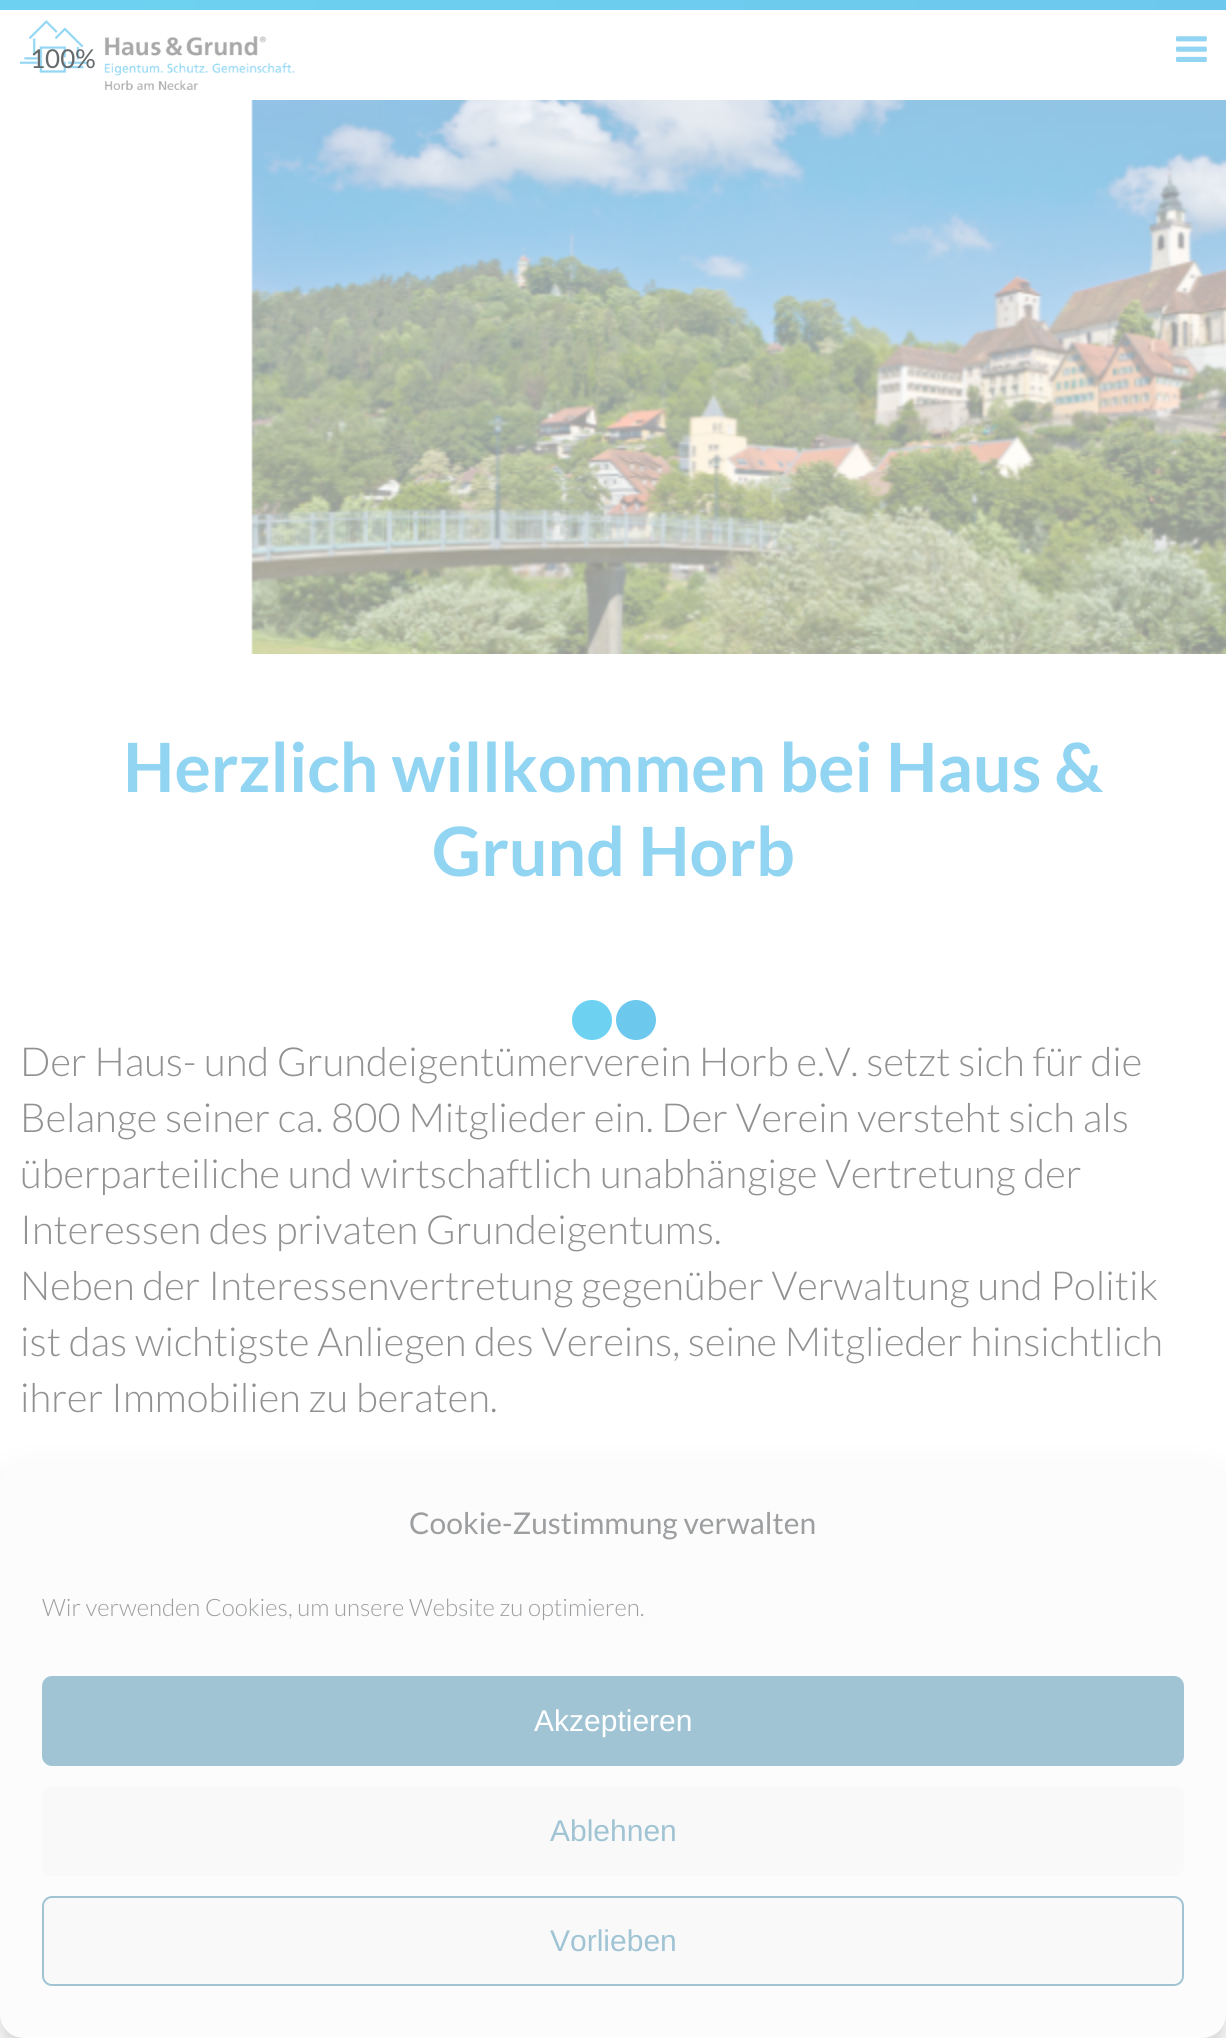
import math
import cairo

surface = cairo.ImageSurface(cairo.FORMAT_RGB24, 1226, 2038)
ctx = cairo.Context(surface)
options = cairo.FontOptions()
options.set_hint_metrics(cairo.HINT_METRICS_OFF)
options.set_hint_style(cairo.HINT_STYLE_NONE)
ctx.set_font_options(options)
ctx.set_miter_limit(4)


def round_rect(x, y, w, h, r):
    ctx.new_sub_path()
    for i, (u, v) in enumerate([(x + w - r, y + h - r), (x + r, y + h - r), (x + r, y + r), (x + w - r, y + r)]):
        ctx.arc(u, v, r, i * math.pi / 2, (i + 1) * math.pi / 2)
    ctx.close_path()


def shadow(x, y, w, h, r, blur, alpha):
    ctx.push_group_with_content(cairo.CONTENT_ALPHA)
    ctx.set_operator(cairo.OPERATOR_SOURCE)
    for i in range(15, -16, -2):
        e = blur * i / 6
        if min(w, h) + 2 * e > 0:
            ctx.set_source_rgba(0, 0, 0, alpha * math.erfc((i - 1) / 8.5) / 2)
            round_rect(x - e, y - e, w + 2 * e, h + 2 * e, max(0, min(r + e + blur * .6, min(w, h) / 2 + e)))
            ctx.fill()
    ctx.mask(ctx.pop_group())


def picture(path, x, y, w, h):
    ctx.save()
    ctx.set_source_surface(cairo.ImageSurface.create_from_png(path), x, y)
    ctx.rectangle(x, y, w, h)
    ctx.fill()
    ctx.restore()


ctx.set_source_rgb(1, 1, 1)
ctx.paint()
picture("img1.png", 20, 20, 275, 70)
picture("img2.png", 1176, 36, 31, 26)
gradient = cairo.LinearGradient(0, 5, 1226, 5)
gradient.add_color_stop_rgba(0, 0.427, 0.824, 0.945, 1)
gradient.add_color_stop_rgba(1, 0.427, 0.784, 0.929, 1)
ctx.set_source(gradient)
ctx.rectangle(0, 0, 1226, 10)
ctx.fill()
ctx.select_font_face("Lato")
ctx.set_font_size(26)
ctx.set_source_rgb(0.396, 0.416, 0.424)
ctx.move_to(30, 68)
ctx.show_text("100%")
ctx.set_source_rgb(0.427, 0.824, 0.945)
ctx.new_path()
ctx.arc(592, 1020, 20, 0, 2 * math.pi)
ctx.fill()
ctx.set_source_rgb(0.427, 0.784, 0.929)
ctx.arc(636, 1020, 20, 0, 2 * math.pi)
ctx.fill()
picture("img3.png", 251, 100, 975, 554)
ctx.select_font_face("Lato", cairo.FONT_SLANT_NORMAL, cairo.FONT_WEIGHT_BOLD)
ctx.set_font_size(68)
ctx.set_source_rgb(0.569, 0.835, 0.949)
ctx.move_to(123, 792)
ctx.show_text("Herzlich willkommen bei Haus &")
ctx.move_to(432, 876)
ctx.show_text("Grund Horb")
ctx.select_font_face("Lato Light")
ctx.set_font_size(40)
ctx.set_source_rgb(0.569, 0.569, 0.569)
ctx.move_to(20, 1076)
ctx.show_text("Der Haus- und Grundeigentümerverein Horb e.V. setzt sich für die")
ctx.move_to(20, 1132)
ctx.show_text("Belange seiner ca. 800 Mitglieder ein. Der Verein versteht sich als")
ctx.move_to(20, 1188)
ctx.show_text("überparteiliche und wirtschaftlich unabhängige Vertretung der")
ctx.move_to(20, 1244)
ctx.show_text("Interessen des privaten Grundeigentums.")
ctx.move_to(20, 1300)
ctx.show_text("Neben der Interessenvertretung gegenüber Verwaltung und Politik")
ctx.move_to(20, 1356)
ctx.show_text("ist das wichtigste Anliegen des Vereins, seine Mitglieder hinsichtlich")
ctx.move_to(20, 1412)
ctx.show_text("ihrer Immobilien zu beraten.")
ctx.set_source_rgb(0.569, 0.569, 0.569)
shadow(0, 1474, 1226, 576, 24, 6, 0.23)
shadow(0, 1482, 1226, 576, 24, 20, 0.19)
ctx.set_source_rgb(0.988, 0.988, 0.988)
round_rect(1, 1463, 1224, 574, 23)
ctx.fill_preserve()
ctx.stroke()
ctx.select_font_face("Lato")
ctx.set_font_size(30)
ctx.set_source_rgb(0.612, 0.62, 0.627)
ctx.move_to(409, 1534)
ctx.show_text("Cookie-Zustimmung verwalten")
ctx.select_font_face("Lato Light")
ctx.set_font_size(24)
ctx.move_to(42, 1616)
ctx.show_text("Wir verwenden Cookies, um unsere Website zu optimieren.")
ctx.set_source_rgb(0.627, 0.769, 0.831)
round_rect(43, 1677, 1140, 88, 9)
ctx.fill_preserve()
ctx.stroke()
ctx.select_font_face("Liberation Sans")
ctx.set_font_size(30)
ctx.set_source_rgb(1, 1, 1)
ctx.move_to(534, 1731)
ctx.show_text("Akzeptieren")
ctx.set_source_rgb(0.976, 0.976, 0.976)
round_rect(42, 1786, 1142, 90, 10)
ctx.fill()
ctx.set_source_rgb(0.627, 0.769, 0.831)
ctx.move_to(550, 1841)
ctx.show_text("Ablehnen")
ctx.set_source_rgb(0.976, 0.976, 0.976)
round_rect(43, 1897, 1140, 88, 9)
ctx.fill_preserve()
ctx.set_source_rgb(0.627, 0.769, 0.831)
ctx.stroke()
ctx.move_to(550, 1951)
ctx.show_text("Vorlieben")
surface.write_to_png("page.png")
